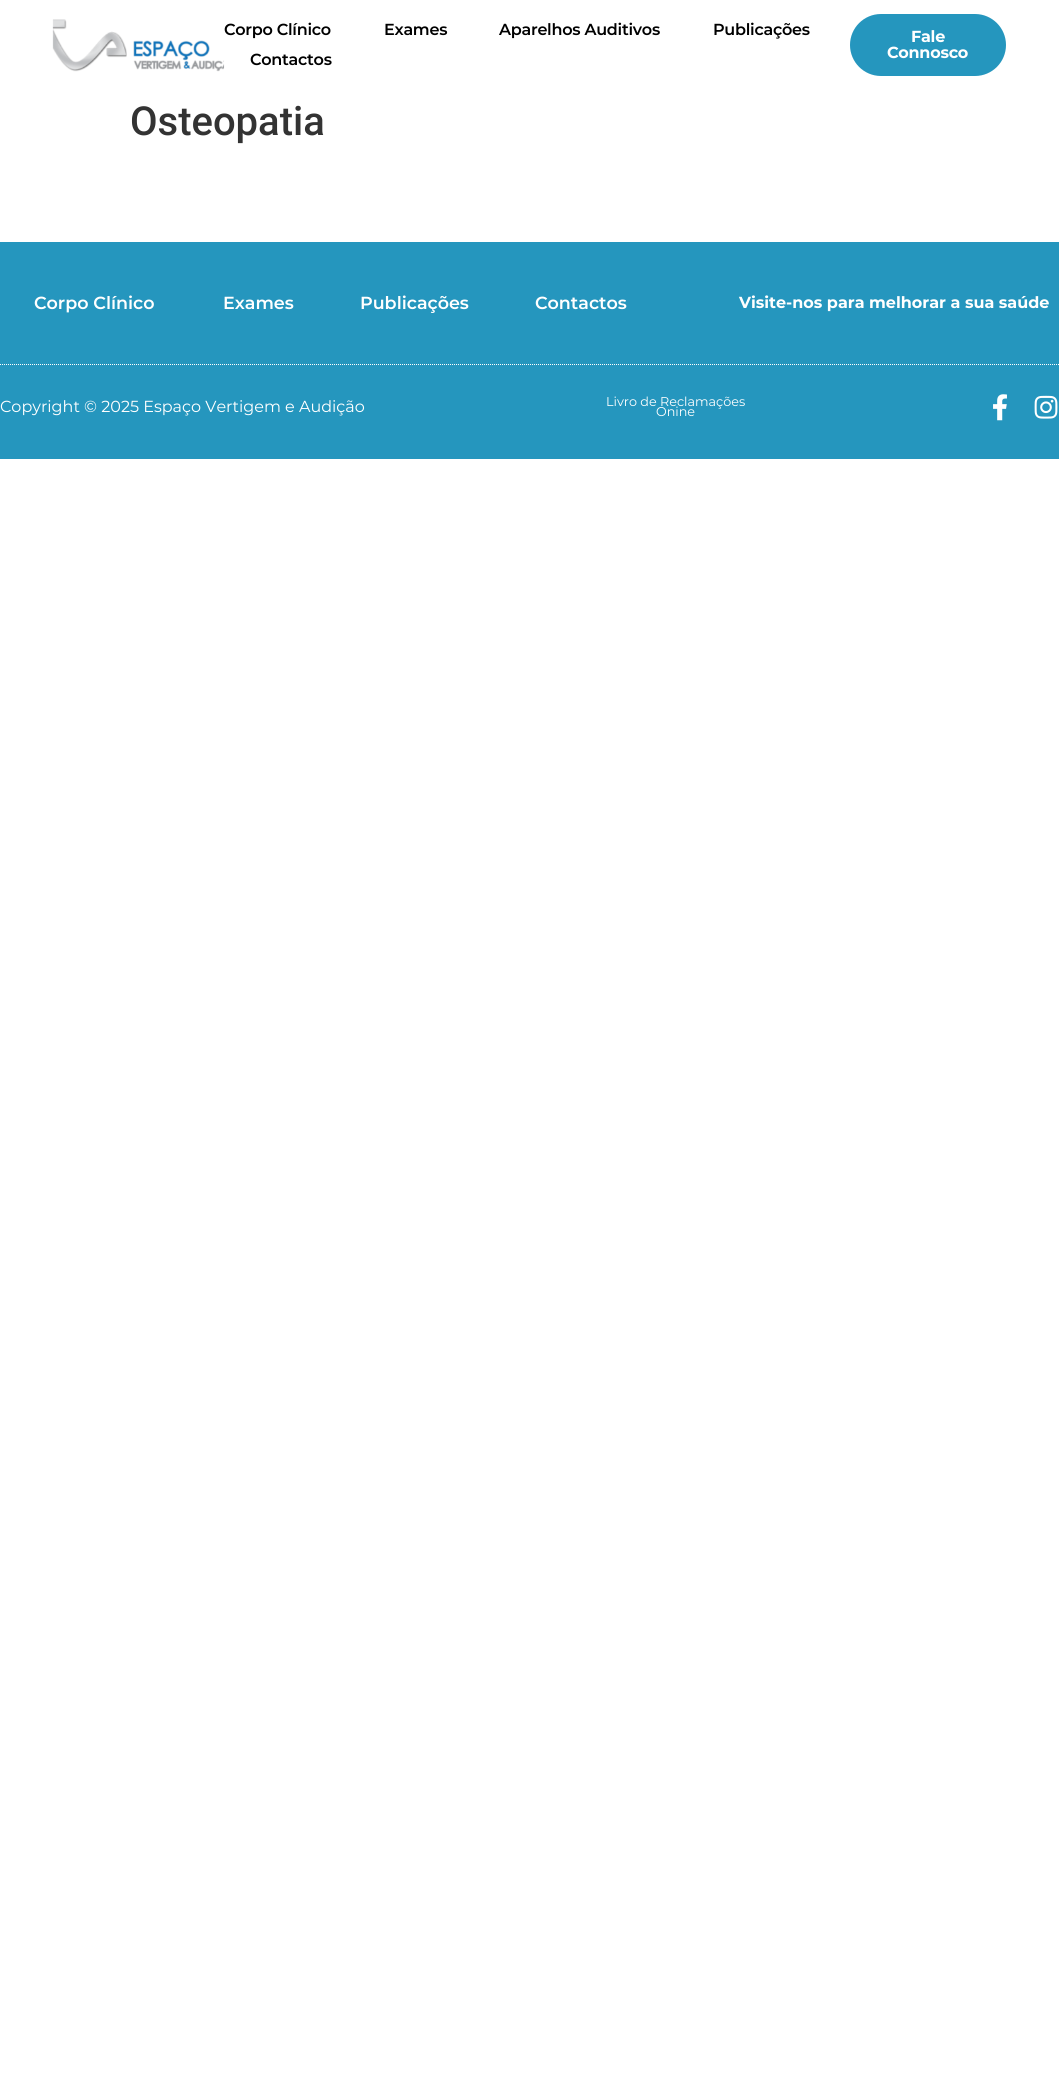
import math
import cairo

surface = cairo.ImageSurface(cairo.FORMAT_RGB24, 1059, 2090)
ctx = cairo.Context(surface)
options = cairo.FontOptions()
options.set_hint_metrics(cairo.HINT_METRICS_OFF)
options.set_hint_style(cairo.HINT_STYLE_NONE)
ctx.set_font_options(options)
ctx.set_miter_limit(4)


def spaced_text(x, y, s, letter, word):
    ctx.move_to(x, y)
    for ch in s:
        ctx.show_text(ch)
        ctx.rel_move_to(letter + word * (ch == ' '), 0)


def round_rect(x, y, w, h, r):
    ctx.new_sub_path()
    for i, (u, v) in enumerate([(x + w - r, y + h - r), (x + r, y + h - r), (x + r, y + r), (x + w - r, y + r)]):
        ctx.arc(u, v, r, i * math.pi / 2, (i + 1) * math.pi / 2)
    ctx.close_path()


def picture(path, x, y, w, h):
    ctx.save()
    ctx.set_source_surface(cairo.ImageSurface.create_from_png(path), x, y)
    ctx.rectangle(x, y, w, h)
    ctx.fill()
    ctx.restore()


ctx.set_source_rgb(1, 1, 1)
ctx.paint()
picture("img1.png", 52, 19, 173, 53)
ctx.select_font_face("Montserrat SemiBold")
ctx.set_font_size(16)
ctx.set_source_rgb(0, 0, 0)
spaced_text(224, 35, "Corpo Clínico", -0.25, 0)
spaced_text(384, 35, "Exames", -0.25, 0)
spaced_text(499, 35, "Aparelhos Auditivos", -0.25, 0)
spaced_text(713, 35, "Publicações", -0.25, 0)
spaced_text(250, 65, "Contactos", -0.25, 0)
ctx.set_source_rgb(0.145, 0.588, 0.745)
round_rect(850, 14, 156, 62, 31)
ctx.fill()
ctx.select_font_face("Montserrat", cairo.FONT_SLANT_NORMAL, cairo.FONT_WEIGHT_BOLD)
ctx.set_source_rgb(1, 1, 1)
spaced_text(911, 42, "Fale", -0.25, 0)
spaced_text(887, 58, "Connosco", -0.25, 0)
ctx.select_font_face("Roboto Medium")
ctx.set_font_size(40)
ctx.set_source_rgb(0.2, 0.2, 0.2)
ctx.move_to(130, 135)
ctx.show_text("Osteopatia")
ctx.set_source_rgb(0.145, 0.588, 0.745)
ctx.rectangle(0, 242, 1059, 217)
ctx.fill()
ctx.new_path()
ctx.move_to(0, 364.5)
ctx.line_to(1059, 364.5)
ctx.set_source_rgb(1, 1, 1)
ctx.set_line_width(1)
ctx.set_dash([1, 1])
ctx.stroke()
ctx.select_font_face("Montserrat SemiBold")
ctx.set_font_size(17.5)
ctx.move_to(34, 309)
ctx.show_text("Corpo Clínico")
ctx.move_to(223, 309)
ctx.show_text("Exames")
ctx.move_to(360, 309)
ctx.show_text("Publicações")
ctx.move_to(535, 309)
ctx.show_text("Contactos")
ctx.select_font_face("Montserrat", cairo.FONT_SLANT_NORMAL, cairo.FONT_WEIGHT_BOLD)
ctx.set_font_size(16)
ctx.move_to(739, 308)
ctx.show_text("Visite-nos para melhorar a sua saúde")
ctx.select_font_face("Montserrat")
ctx.move_to(0, 412)
ctx.show_text("Copyright © 2025 Espaço Vertigem e Audição")
ctx.set_font_size(12.75)
ctx.move_to(606, 406)
ctx.show_text("Livro de Reclamações")
ctx.move_to(656, 416)
ctx.show_text("Onine")
picture("img2.png", 993, 394, 14, 27)
picture("img3.png", 1034, 395, 24, 24)
surface.write_to_png("page.png")
